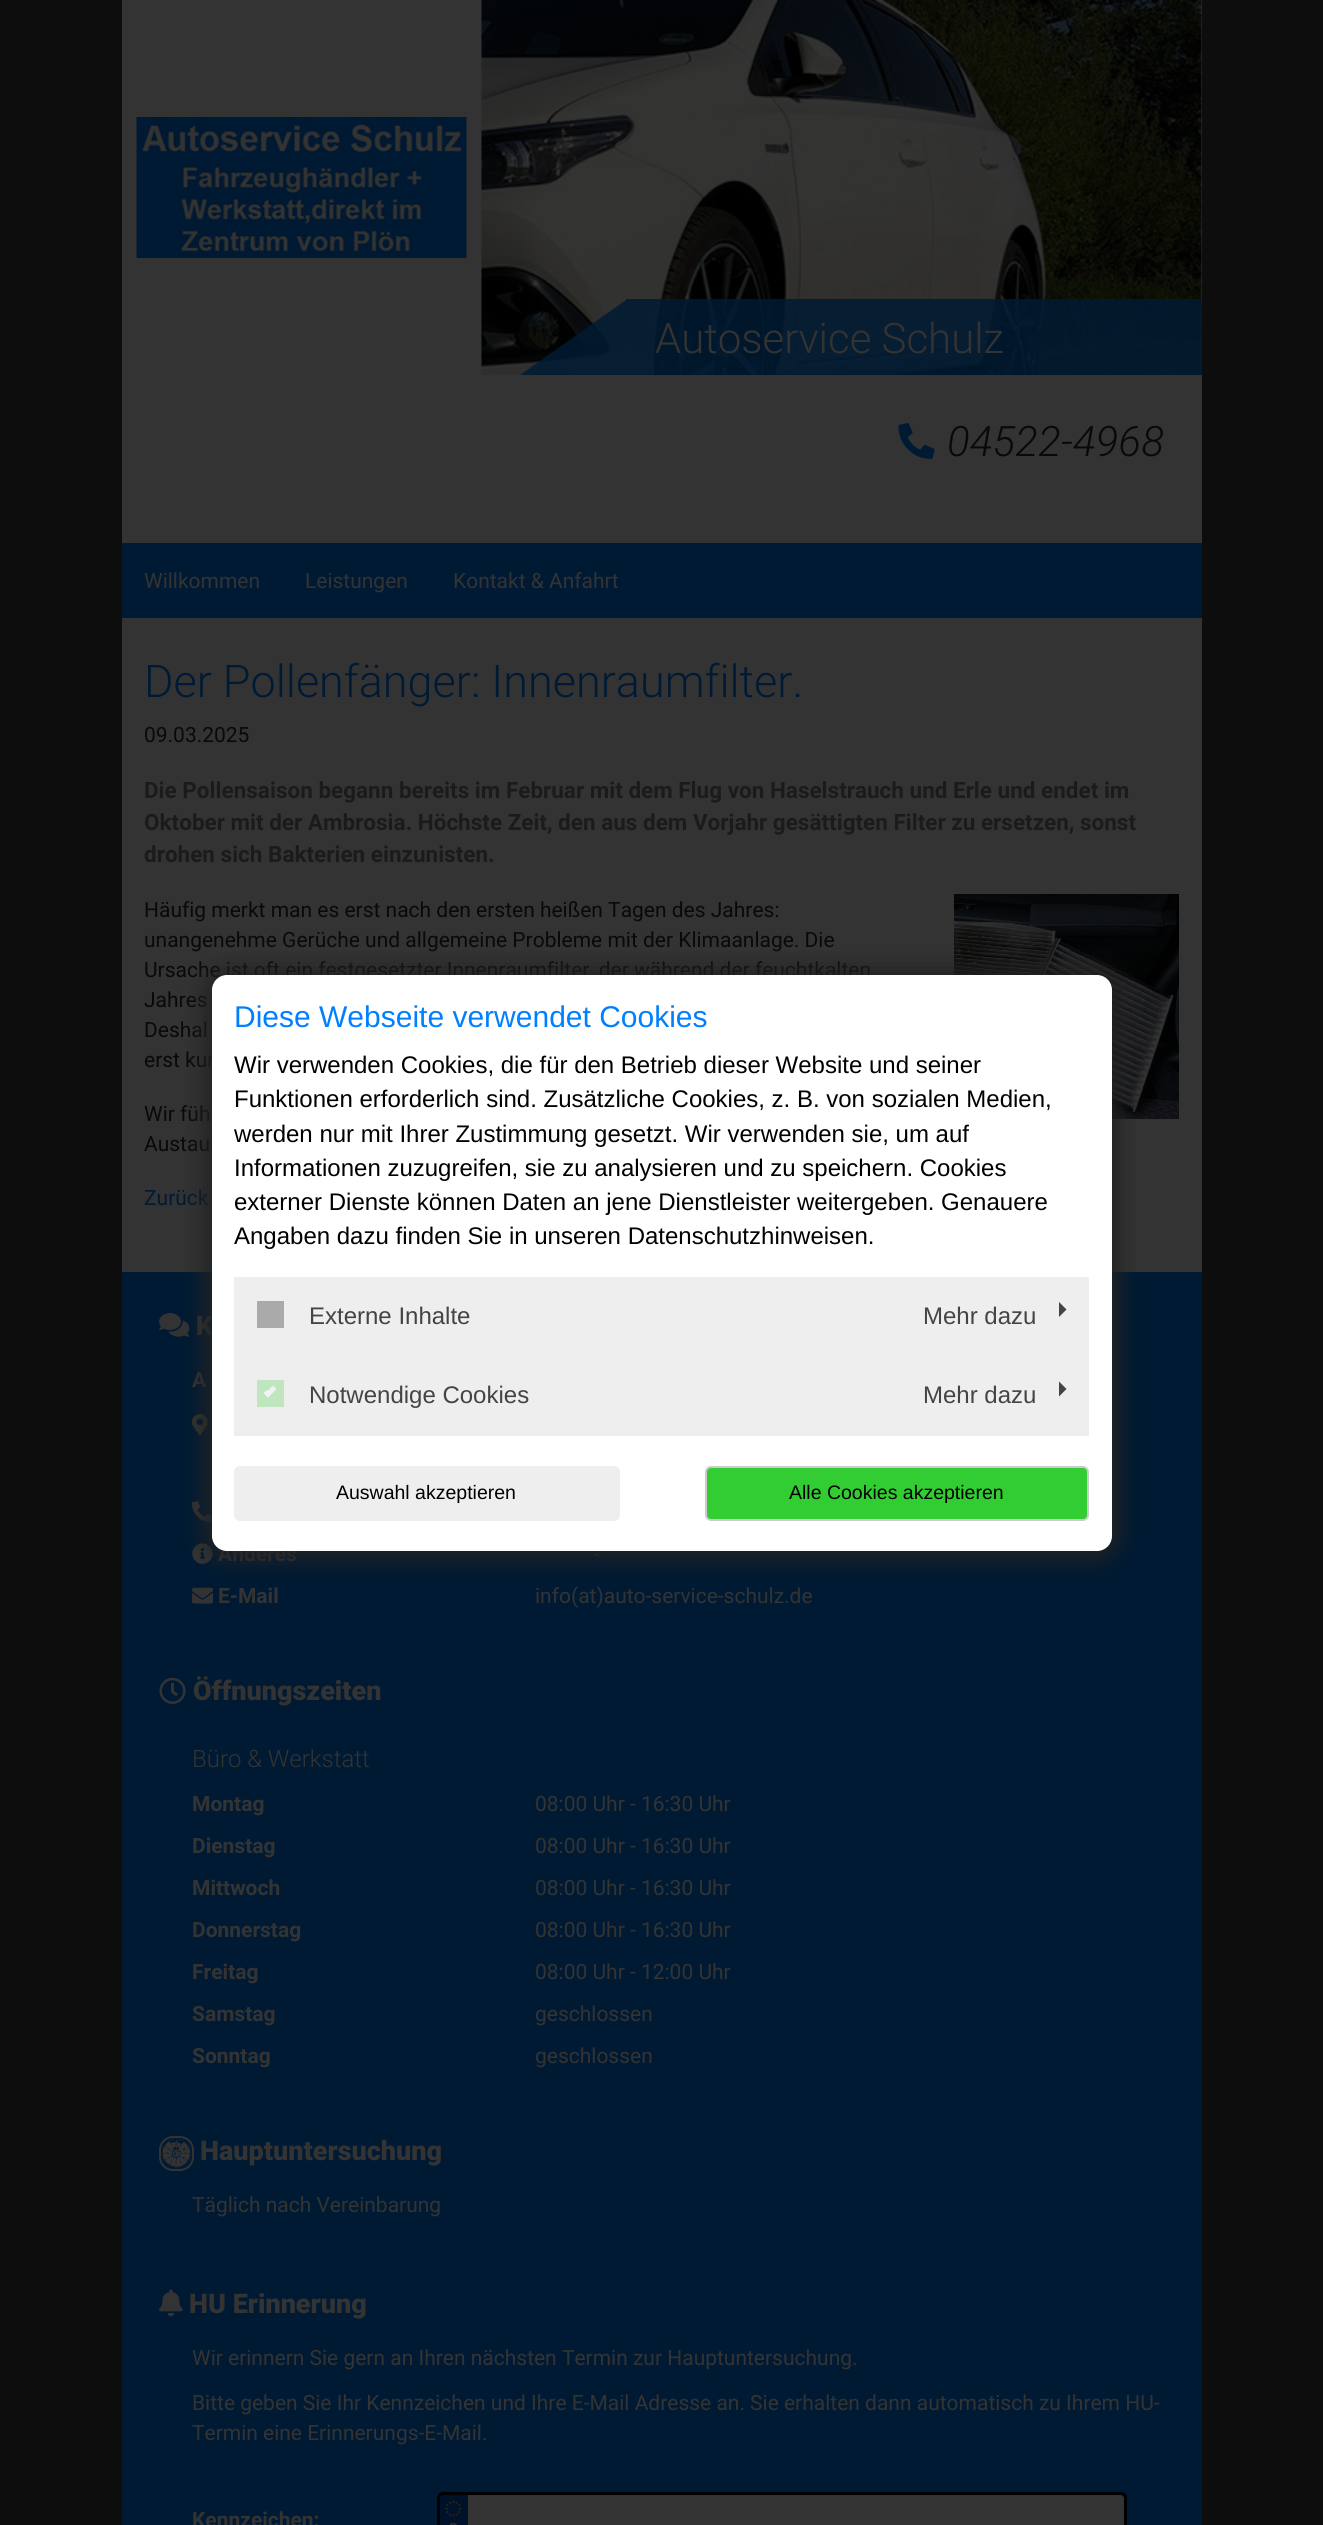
import math
import cairo

surface = cairo.ImageSurface(cairo.FORMAT_RGB24, 1323, 2525)
ctx = cairo.Context(surface)
options = cairo.FontOptions()
options.set_hint_metrics(cairo.HINT_METRICS_OFF)
options.set_hint_style(cairo.HINT_STYLE_NONE)
ctx.set_font_options(options)
ctx.set_miter_limit(4)


def round_rect(x, y, w, h, r):
    ctx.new_sub_path()
    for i, (u, v) in enumerate([(x + w - r, y + h - r), (x + r, y + h - r), (x + r, y + r), (x + w - r, y + r)]):
        ctx.arc(u, v, r, i * math.pi / 2, (i + 1) * math.pi / 2)
    ctx.close_path()


def shadow(x, y, w, h, r, blur, alpha):
    ctx.push_group_with_content(cairo.CONTENT_ALPHA)
    ctx.set_operator(cairo.OPERATOR_SOURCE)
    for i in range(15, -16, -2):
        e = blur * i / 6
        if min(w, h) + 2 * e > 0:
            ctx.set_source_rgba(0, 0, 0, alpha * math.erfc((i - 1) / 8.5) / 2)
            round_rect(x - e, y - e, w + 2 * e, h + 2 * e, max(0, min(r + e + blur * .6, min(w, h) / 2 + e)))
            ctx.fill()
    ctx.mask(ctx.pop_group())


def picture(path, x, y, w, h):
    ctx.save()
    ctx.set_source_surface(cairo.ImageSurface.create_from_png(path), x, y)
    ctx.rectangle(x, y, w, h)
    ctx.fill()
    ctx.restore()


ctx.set_source_rgb(0.051, 0.051, 0.051)
ctx.paint()
ctx.set_source_rgb(0.2, 0.2, 0.2)
ctx.rectangle(122, 0, 1080, 1272)
ctx.fill()
picture("img1.png", 136, 117, 331, 141)
picture("img2.png", 481, 0, 721, 375)
ctx.set_source_rgba(0, 0.102, 0.2, 0.85)
ctx.new_path()
ctx.move_to(626, 375)
ctx.line_to(520, 375)
ctx.line_to(626, 300)
ctx.close_path()
ctx.fill()
ctx.rectangle(626, 299, 576, 76)
ctx.fill()
ctx.select_font_face("Roboto Light")
ctx.set_font_size(42)
ctx.set_source_rgb(0.2, 0.2, 0.2)
ctx.move_to(655, 353)
ctx.show_text("Autoservice Schulz")
picture("img3.png", 898, 423, 37, 36)
ctx.select_font_face("Roboto Light", cairo.FONT_SLANT_ITALIC)
ctx.set_source_rgb(0.039, 0.039, 0.039)
ctx.move_to(947, 456)
ctx.show_text("04522-4968")
ctx.set_source_rgb(0, 0.102, 0.2)
ctx.rectangle(122, 543, 1080, 75)
ctx.fill()
ctx.select_font_face("Roboto")
ctx.set_font_size(21)
ctx.set_source_rgb(0.2, 0.2, 0.2)
ctx.move_to(144, 588)
ctx.show_text("Willkommen")
ctx.move_to(305, 588)
ctx.show_text("Leistungen")
ctx.move_to(453, 588)
ctx.show_text("Kontakt & Anfahrt")
ctx.select_font_face("Roboto Light")
ctx.set_font_size(45)
ctx.set_source_rgb(0, 0.102, 0.2)
ctx.move_to(144, 697)
ctx.show_text("Der Pollenfänger: Innenraumfilter.")
ctx.select_font_face("Roboto")
ctx.set_font_size(21)
ctx.set_source_rgb(0.039, 0.039, 0.039)
ctx.move_to(144, 742)
ctx.show_text("09.03.2025")
ctx.select_font_face("Roboto", cairo.FONT_SLANT_NORMAL, cairo.FONT_WEIGHT_BOLD)
ctx.set_font_size(22.5)
ctx.set_source_rgb(0.106, 0.106, 0.106)
ctx.move_to(144, 798)
ctx.show_text("Die Pollensaison begann bereits im Februar mit dem Flug von Haselstrauch und Erle und endet im")
ctx.move_to(144, 830)
ctx.show_text("Oktober mit der Ambrosia. Höchste Zeit, den aus dem Vorjahr gesättigten Filter zu ersetzen, sonst")
ctx.move_to(144, 862)
ctx.show_text("drohen sich Bakterien einzunisten.")
ctx.select_font_face("Roboto")
ctx.set_font_size(21)
ctx.set_source_rgb(0.039, 0.039, 0.039)
ctx.move_to(144, 917)
ctx.show_text("Häufig merkt man es erst nach den ersten heißen Tagen des Jahres:")
ctx.move_to(144, 947)
ctx.show_text("unangenehme Gerüche und allgemeine Probleme mit der Klimaanlage. Die")
ctx.move_to(144, 977)
ctx.show_text("Ursache ist oft ein festgesetzter Innenraumfilter, der während der feuchtkalten")
ctx.move_to(144, 1007)
ctx.show_text("Jahres")
ctx.move_to(144, 1037)
ctx.show_text("Deshal")
ctx.move_to(144, 1067)
ctx.show_text("erst kur")
ctx.move_to(144, 1121)
ctx.show_text("Wir füh")
ctx.move_to(144, 1151)
ctx.show_text("Austau")
picture("img4.png", 954, 894, 225, 225)
ctx.set_source_rgb(0, 0.102, 0.2)
ctx.move_to(144, 1205)
ctx.show_text("Zurück")
ctx.rectangle(122, 1272, 1080, 1253)
ctx.fill()
picture("img5.png", 159, 1313, 31, 24)
ctx.select_font_face("Roboto Black")
ctx.set_font_size(27)
ctx.set_source_rgb(0.2, 0.2, 0.2)
ctx.move_to(196, 1335)
ctx.show_text("K")
ctx.select_font_face("Roboto", cairo.FONT_SLANT_NORMAL, cairo.FONT_WEIGHT_BOLD)
ctx.set_font_size(21)
ctx.move_to(192, 1387)
ctx.show_text("A")
picture("img6.png", 192, 1414, 16, 22)
picture("img7.png", 192, 1501, 20, 22)
picture("img8.png", 192, 1543, 21, 21)
ctx.move_to(218, 1561)
ctx.show_text("Anderes")
ctx.select_font_face("Roboto")
ctx.move_to(594, 1561)
ctx.show_text("-")
picture("img9.png", 192, 1587, 21, 17)
ctx.select_font_face("Roboto", cairo.FONT_SLANT_NORMAL, cairo.FONT_WEIGHT_BOLD)
ctx.move_to(218, 1603)
ctx.show_text("E-Mail")
ctx.select_font_face("Roboto")
ctx.move_to(535, 1603)
ctx.show_text("info(at)auto-service-schulz.de")
picture("img10.png", 159, 1677, 27, 27)
ctx.select_font_face("Roboto Black")
ctx.set_font_size(27)
ctx.move_to(193, 1700)
ctx.show_text("Öffnungszeiten")
ctx.select_font_face("Roboto Light")
ctx.set_font_size(24)
ctx.move_to(192, 1767)
ctx.show_text("Büro & Werkstatt")
ctx.select_font_face("Roboto", cairo.FONT_SLANT_NORMAL, cairo.FONT_WEIGHT_BOLD)
ctx.set_font_size(21)
ctx.move_to(192, 1811)
ctx.show_text("Montag")
ctx.select_font_face("Roboto")
ctx.move_to(535, 1811)
ctx.show_text("08:00 Uhr - 16:30 Uhr")
ctx.select_font_face("Roboto", cairo.FONT_SLANT_NORMAL, cairo.FONT_WEIGHT_BOLD)
ctx.move_to(192, 1853)
ctx.show_text("Dienstag")
ctx.select_font_face("Roboto")
ctx.move_to(535, 1853)
ctx.show_text("08:00 Uhr - 16:30 Uhr")
ctx.select_font_face("Roboto", cairo.FONT_SLANT_NORMAL, cairo.FONT_WEIGHT_BOLD)
ctx.move_to(192, 1895)
ctx.show_text("Mittwoch")
ctx.select_font_face("Roboto")
ctx.move_to(535, 1895)
ctx.show_text("08:00 Uhr - 16:30 Uhr")
ctx.select_font_face("Roboto", cairo.FONT_SLANT_NORMAL, cairo.FONT_WEIGHT_BOLD)
ctx.move_to(192, 1937)
ctx.show_text("Donnerstag")
ctx.select_font_face("Roboto")
ctx.move_to(535, 1937)
ctx.show_text("08:00 Uhr - 16:30 Uhr")
ctx.select_font_face("Roboto", cairo.FONT_SLANT_NORMAL, cairo.FONT_WEIGHT_BOLD)
ctx.move_to(192, 1979)
ctx.show_text("Freitag")
ctx.select_font_face("Roboto")
ctx.move_to(535, 1979)
ctx.show_text("08:00 Uhr - 12:00 Uhr")
ctx.select_font_face("Roboto", cairo.FONT_SLANT_NORMAL, cairo.FONT_WEIGHT_BOLD)
ctx.move_to(192, 2021)
ctx.show_text("Samstag")
ctx.select_font_face("Roboto")
ctx.move_to(535, 2021)
ctx.show_text("geschlossen")
ctx.select_font_face("Roboto", cairo.FONT_SLANT_NORMAL, cairo.FONT_WEIGHT_BOLD)
ctx.move_to(192, 2063)
ctx.show_text("Sonntag")
ctx.select_font_face("Roboto")
ctx.move_to(535, 2063)
ctx.show_text("geschlossen")
round_rect(160, 2137, 33, 33, 13)
ctx.stroke()
picture("img11.png", 162, 2139, 29, 29)
ctx.select_font_face("Roboto Black")
ctx.set_font_size(27)
ctx.move_to(200, 2160)
ctx.show_text("Hauptuntersuchung")
ctx.select_font_face("Roboto")
ctx.set_font_size(21)
ctx.move_to(192, 2212)
ctx.show_text("Täglich nach Vereinbarung")
picture("img12.png", 159, 2289, 24, 28)
ctx.select_font_face("Roboto Black")
ctx.set_font_size(27)
ctx.move_to(189, 2313)
ctx.show_text("HU Erinnerung")
ctx.select_font_face("Roboto")
ctx.set_font_size(21)
ctx.move_to(192, 2365)
ctx.show_text("Wir erinnern Sie gern an Ihren nächsten Termin zur Hauptuntersuchung.")
ctx.move_to(192, 2410)
ctx.show_text("Bitte geben Sie Ihr Kennzeichen und Ihre E-Mail Adresse an. Sie erhalten dann automatisch zu Ihrem HU-")
ctx.move_to(192, 2440)
ctx.show_text("Termin eine Erinnerungs-E-Mail.")
ctx.select_font_face("Roboto", cairo.FONT_SLANT_NORMAL, cairo.FONT_WEIGHT_BOLD)
ctx.move_to(192, 2527)
ctx.show_text("Kennzeichen:")
round_rect(440, 2495, 684, 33, 3)
ctx.fill()
picture("img13.png", 440, 2495, 28, 30)
ctx.set_source_rgba(0, 0, 0, 0.07)
ctx.new_path()
ctx.move_to(442, 2496)
ctx.line_to(1120, 2496)
ctx.curve_to(1122, 2496, 1124, 2497, 1124, 2499)
ctx.line_to(1124, 2498)
ctx.curve_to(1124, 2496, 1123, 2495, 1121, 2495)
ctx.line_to(443, 2495)
ctx.curve_to(441, 2495, 440, 2496, 440, 2498)
ctx.line_to(440, 2499)
ctx.curve_to(440, 2497, 441, 2496, 442, 2496)
ctx.close_path()
ctx.fill()
round_rect(438.5, 2493.5, 687, 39, 4.5)
ctx.set_source_rgb(0, 0, 0)
ctx.set_line_width(3)
ctx.stroke()
ctx.set_source_rgb(0.133, 0.133, 0.133)
shadow(204, 968, 915, 591, 23, 11, 1)
ctx.set_source_rgb(1, 1, 1)
round_rect(212, 975, 900, 576, 15)
ctx.fill()
ctx.select_font_face("Liberation Sans")
ctx.set_font_size(30)
ctx.set_source_rgb(0, 0.502, 1)
ctx.move_to(234, 1027)
ctx.show_text("Diese Webseite verwendet Cookies")
ctx.set_font_size(24)
ctx.set_source_rgb(0, 0, 0)
ctx.move_to(234, 1073)
ctx.show_text("Wir verwenden Cookies, die für den Betrieb dieser Website und seiner")
ctx.move_to(234, 1107)
ctx.show_text("Funktionen erforderlich sind. Zusätzliche Cookies, z. B. von sozialen Medien,")
ctx.move_to(234, 1142)
ctx.show_text("werden nur mit Ihrer Zustimmung gesetzt. Wir verwenden sie, um auf")
ctx.move_to(234, 1176)
ctx.show_text("Informationen zuzugreifen, sie zu analysieren und zu speichern. Cookies")
ctx.move_to(234, 1210)
ctx.show_text("externer Dienste können Daten an jene Dienstleister weitergeben. Genauere")
ctx.move_to(234, 1244)
ctx.show_text("Angaben dazu finden Sie in unseren Datenschutzhinweisen.")
ctx.set_source_rgb(0.933, 0.933, 0.933)
ctx.rectangle(234, 1277, 855, 159)
ctx.fill()
ctx.set_source_rgb(0.667, 0.667, 0.667)
ctx.rectangle(257, 1301, 27, 27)
ctx.fill()
ctx.set_source_rgb(0.267, 0.267, 0.267)
ctx.move_to(309, 1324)
ctx.show_text("Externe Inhalte")
ctx.move_to(923, 1324)
ctx.show_text("Mehr dazu")
ctx.new_path()
ctx.move_to(1059, 1317)
ctx.line_to(1059, 1302)
ctx.line_to(1066.5, 1309.5)
ctx.close_path()
ctx.fill()
ctx.set_source_rgb(0.749, 0.902, 0.749)
ctx.rectangle(257, 1380, 27, 27)
ctx.fill()
ctx.set_source_rgb(0.949, 0.949, 0.949)
ctx.new_path()
ctx.move_to(273, 1385.5)
ctx.line_to(276.5, 1389)
ctx.line_to(268, 1397.5)
ctx.line_to(264.5, 1394)
ctx.close_path()
ctx.fill()
ctx.new_path()
ctx.move_to(267, 1390)
ctx.line_to(271, 1394)
ctx.line_to(268, 1397.5)
ctx.line_to(263.5, 1393)
ctx.close_path()
ctx.fill()
ctx.set_source_rgb(0.267, 0.267, 0.267)
ctx.move_to(309, 1403)
ctx.show_text("Notwendige Cookies")
ctx.move_to(923, 1403)
ctx.show_text("Mehr dazu")
ctx.new_path()
ctx.move_to(1059, 1396.5)
ctx.line_to(1059, 1381.5)
ctx.line_to(1066.5, 1389)
ctx.close_path()
ctx.fill()
ctx.set_source_rgb(0.933, 0.933, 0.933)
round_rect(235, 1467, 384, 53, 5)
ctx.fill_preserve()
ctx.set_line_width(2)
ctx.stroke()
ctx.set_font_size(19.5)
ctx.set_source_rgb(0, 0, 0)
ctx.move_to(336, 1499)
ctx.show_text("Auswahl akzeptieren")
ctx.set_source_rgb(0.196, 0.804, 0.196)
round_rect(706, 1467, 382, 53, 5)
ctx.fill_preserve()
ctx.set_source_rgb(0.8, 0.8, 0.8)
ctx.stroke()
ctx.set_source_rgb(0, 0, 0)
ctx.move_to(789, 1499)
ctx.show_text("Alle Cookies akzeptieren")
surface.write_to_png("page.png")
